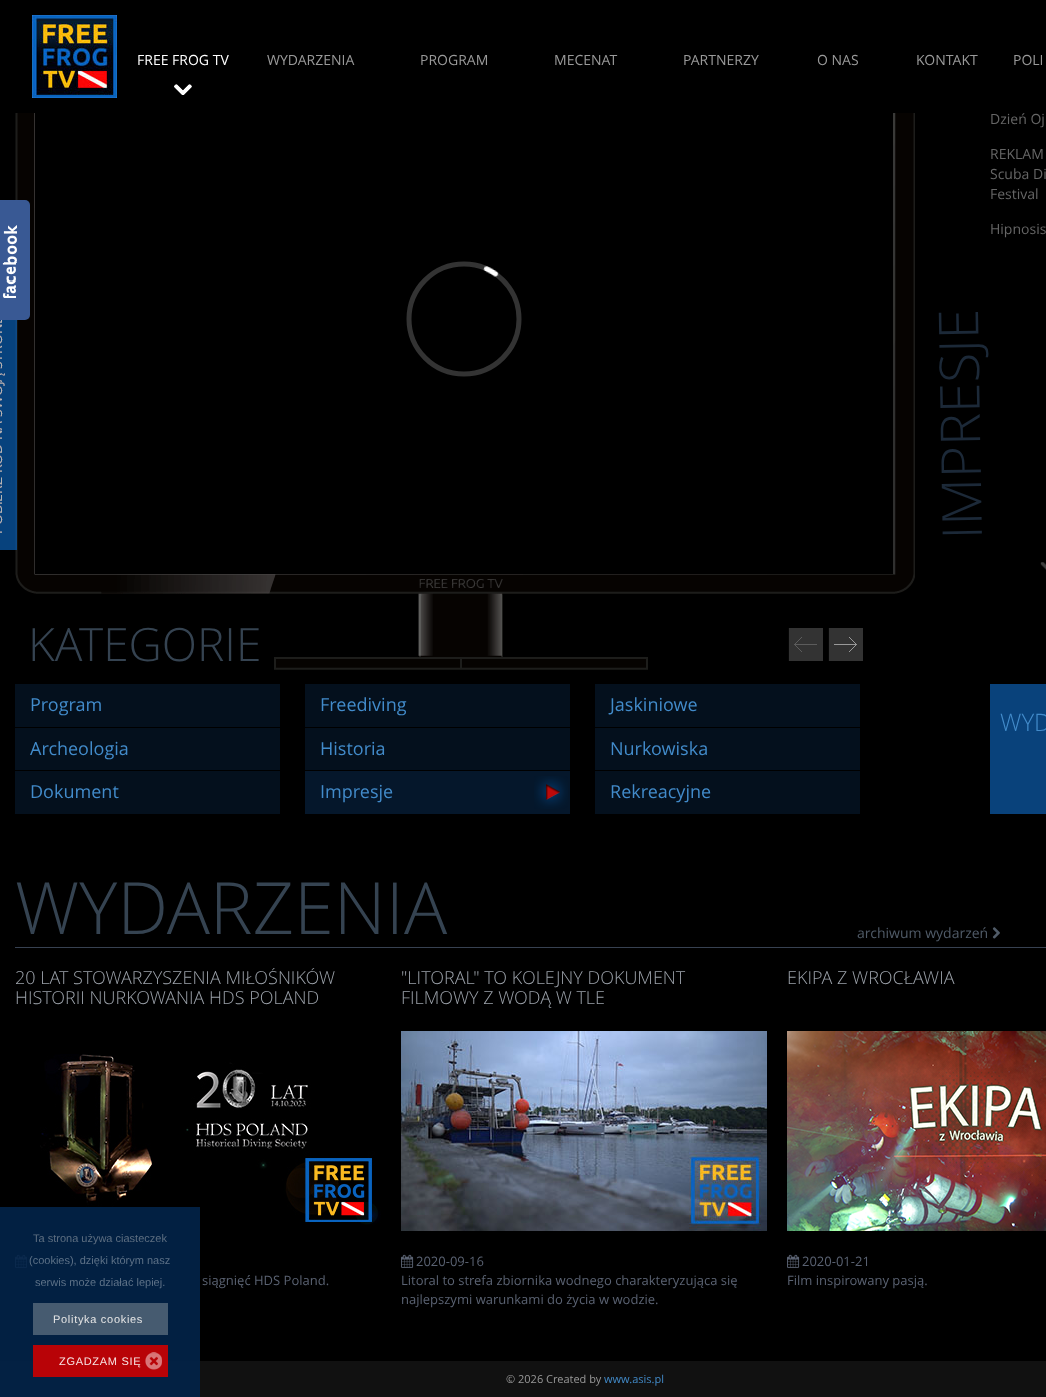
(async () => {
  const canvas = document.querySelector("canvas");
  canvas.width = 1046;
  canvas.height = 1397;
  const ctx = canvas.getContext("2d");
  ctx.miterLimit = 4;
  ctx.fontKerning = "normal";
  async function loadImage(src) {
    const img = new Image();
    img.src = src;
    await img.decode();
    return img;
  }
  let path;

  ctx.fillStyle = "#000000";
  ctx.fillRect(0, 0, 1046, 1397);
  ctx.drawImage(await loadImage("img/1.png"), 32, 15, 85, 83);
  ctx.drawImage(await loadImage("img/2.png"), 174, 84, 18, 11);
  ctx.drawImage(await loadImage("img/6.png"), 15, 113, 900, 557);
  ctx.fillStyle = "#395994";
  ctx.beginPath();
  ctx.roundRect(0, 200, 30, 120, [0, 5, 5, 0]);
  ctx.fill();
  ctx.drawImage(await loadImage("img/3.png"), 2, 225, 15, 73);
  ctx.drawImage(await loadImage("img/4.png"), 1040, 562, 6, 8);
  ctx.drawImage(await loadImage("img/5.png"), 0, 320, 17, 230);
  ctx.drawImage(await loadImage("img/7.png"), 35, 113, 858, 461);
  ctx.drawImage(await loadImage("img/8.png"), 788, 628, 35, 33);
  ctx.drawImage(await loadImage("img/9.png"), 828, 628, 35, 33);
  for (const [x, y, w, h, color] of [
    [15, 684, 265, 43, "#04101d"],
    [15, 728, 265, 42, "#04101d"],
    [15, 771, 265, 43, "#04101d"],
    [305, 684, 265, 43, "#04101d"],
    [305, 728, 265, 42, "#04101d"],
    [305, 771, 265, 43, "#05172b"],
  ]) {
    ctx.fillStyle = color;
    ctx.fillRect(x, y, w, h);
  }
  ctx.drawImage(await loadImage("img/10.png"), 534, 776, 34, 33);
  for (const [x, y, w, h, color] of [
    [595, 684, 265, 43, "#04101d"],
    [595, 728, 265, 42, "#04101d"],
    [595, 771, 265, 43, "#04101d"],
    [990, 684, 56, 130, "#09427b"],
    [15, 947, 1031, 1, "#374151"],
  ]) {
    ctx.fillStyle = color;
    ctx.fillRect(x, y, w, h);
  }
  ctx.drawImage(await loadImage("img/11.png"), 992, 927, 8, 12);
  ctx.drawImage(await loadImage("img/12.png"), 40, 1054, 341, 171);
  ctx.drawImage(await loadImage("img/13.png"), 15, 1254, 13, 14);
  ctx.drawImage(await loadImage("img/14.png"), 401, 1031, 366, 200);
  ctx.drawImage(await loadImage("img/13.png"), 401, 1254, 13, 14);
  ctx.drawImage(await loadImage("img/15.png"), 787, 1031, 259, 200);
  ctx.drawImage(await loadImage("img/13.png"), 787, 1254, 13, 14);
  for (const [x, y, w, h, color] of [
    [0, 1361, 1046, 36, "#111111"],
    [0, 1207, 200, 190, "rgba(2, 36, 73, 0.9)"],
    [33, 1303, 135, 32, "#465b70"],
    [33, 1345, 135, 32, "#b80307"],
  ]) {
    ctx.fillStyle = color;
    ctx.fillRect(x, y, w, h);
  }
  ctx.drawImage(await loadImage("img/16.png"), 145, 1352, 17, 18);
  ctx.font = "14px Open Sans";
  ctx.fillStyle = "#ffffff";
  ctx.fillText("FREE FROG TV", 137, 65);
  ctx.fillStyle = "#999999";
  for (const [text, x, y] of [
    ["WYDARZENIA", 267, 65],
    ["PROGRAM", 420, 65],
    ["MECENAT", 554, 65],
    ["PARTNERZY", 683, 65],
    ["O NAS", 817, 65],
    ["KONTAKT", 916, 65],
    ["POLI", 1013, 65],
  ]) {
    ctx.fillText(text, x, y);
  }
  ctx.fillStyle = "#666666";
  for (const [text, x, y] of [
    ["Dzień Oj", 990, 124],
    ["REKLAM", 990, 159],
    ["Scuba Di", 990, 179],
    ["Festival", 990, 199],
    ["Hipnosis", 990, 234],
  ]) {
    ctx.fillText(text, x, y);
  }
  ctx.save();
  path = new Path2D("M931.5 539.5L923 70L983.5 69L992 538.5Z");
  ctx.clip(path);
  ctx.font = "300 55px Open Sans";
  ctx.fillStyle = "#1c2938";
  ctx.save();
  ctx.translate(982, 539);
  ctx.rotate(-91 * Math.PI / 180);
  ctx.fillText("IMPRESJE", 0, 0);
  ctx.restore();
  ctx.restore();
  ctx.font = "300 46px Open Sans";
  ctx.fillStyle = "#354351";
  ctx.fillText("KATEGORIE", 28, 661);
  ctx.font = "18px Open Sans";
  ctx.fillStyle = "#428bca";
  for (const [text, x, y] of [
    ["Program", 30, 711],
    ["Archeologia", 30, 755],
    ["Dokument", 30, 798],
    ["Freediving", 320, 711],
    ["Historia", 320, 755],
    ["Impresje", 320, 798],
    ["Jaskiniowe", 610, 711],
    ["Nurkowiska", 610, 755],
    ["Rekreacyjne", 610, 798],
  ]) {
    ctx.fillText(text, x, y);
  }
  ctx.font = "300 24px Open Sans";
  ctx.fillText("WYD", 1000, 731);
  ctx.font = "300 72px Open Sans";
  ctx.fillStyle = "#354351";
  ctx.fillText("WYDARZENIA", 15, 934);
  ctx.font = "14px Open Sans";
  ctx.fillStyle = "#505b68";
  ctx.fillText("archiwum wydarzeń", 857, 938);
  ctx.save();
  ctx.beginPath();
  ctx.rect(15, 968, 366, 43);
  ctx.clip();
  ctx.font = "300 18px Open Sans";
  ctx.fillStyle = "#9ba1a9";
  ctx.fillText("20 LAT STOWARZYSZENIA MIŁOŚNIKÓW", 15, 984);
  ctx.restore();
  ctx.font = "300 18px Open Sans";
  ctx.fillStyle = "#9ba1a9";
  ctx.fillText("HISTORII NURKOWANIA HDS POLAND", 15, 1004);
  ctx.font = "13px Open Sans";
  ctx.fillStyle = "#5a6272";
  ctx.fillText("siągnięć HDS Poland.", 202, 1285);
  ctx.font = "300 18px Open Sans";
  ctx.fillStyle = "#9ba1a9";
  ctx.fillText("\"LITORAL\" TO KOLEJNY DOKUMENT", 401, 984);
  ctx.fillText("FILMOWY Z WODĄ W TLE", 401, 1004);
  ctx.font = "13px Open Sans";
  ctx.fillStyle = "#5a6272";
  for (const [text, x, y] of [
    ["2020-09-16", 416, 1266],
    ["Litoral to strefa zbiornika wodnego charakteryzująca się", 401, 1285],
    ["najlepszymi warunkami do życia w wodzie.", 401, 1304],
  ]) {
    ctx.fillText(text, x, y);
  }
  ctx.font = "300 18px Open Sans";
  ctx.fillStyle = "#9ba1a9";
  ctx.fillText("EKIPA Z WROCŁAWIA", 787, 984);
  ctx.font = "13px Open Sans";
  ctx.fillStyle = "#5a6272";
  ctx.fillText("2020-01-21", 802, 1266);
  ctx.fillText("Film inspirowany pasją.", 787, 1285);
  ctx.font = "11px Liberation Sans";
  ctx.fillStyle = "#5d6e81";
  ctx.fillText("Ta strona używa ciasteczek", 33, 1242);
  ctx.fillStyle = "#5d7187";
  ctx.fillText("(cookies), dzięki którym nasz", 29, 1264);
  ctx.fillText("serwis może działać lepiej.", 35, 1286);
  ctx.letterSpacing = "0.7px";
  ctx.fillStyle = "#e6e6e6";
  ctx.fillText("Polityka cookies", 53, 1323);
  ctx.fillStyle = "#f8e6e6";
  ctx.fillText("ZGADZAM SIĘ", 59, 1365);
  ctx.letterSpacing = "0px";
  ctx.font = "11px Open Sans";
  ctx.fillStyle = "#999999";
  ctx.fillText("© 2026 Created by", 506, 1383);
  ctx.fillStyle = "#428bca";
  ctx.fillText("www.asis.pl", 604, 1383);
})();
